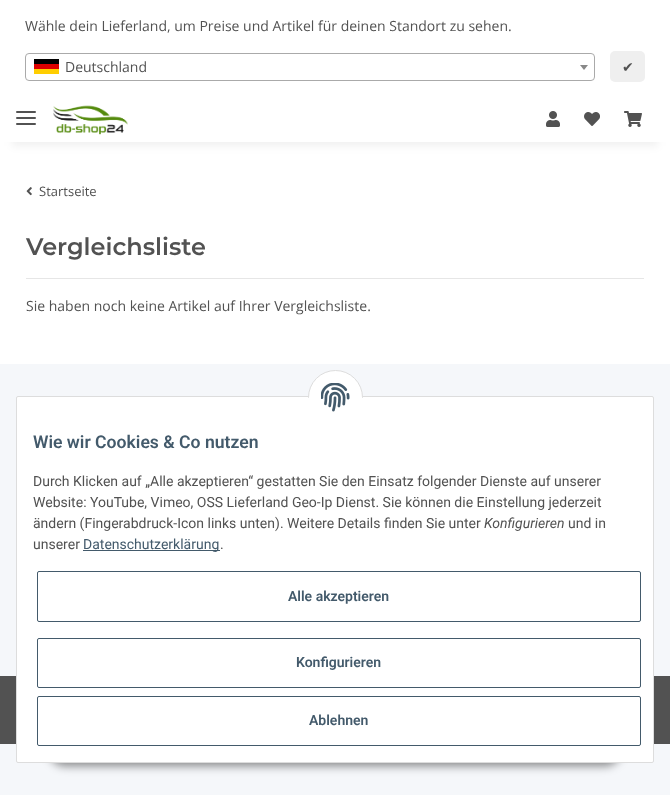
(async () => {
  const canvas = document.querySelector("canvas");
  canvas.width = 670;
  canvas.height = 795;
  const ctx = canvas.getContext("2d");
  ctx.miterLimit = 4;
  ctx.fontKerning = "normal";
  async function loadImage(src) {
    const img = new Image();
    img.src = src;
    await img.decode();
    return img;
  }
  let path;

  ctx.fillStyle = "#f5f7fa";
  ctx.fillRect(0, 0, 670, 795);
  ctx.fillStyle = "#ffffff";
  ctx.fillRect(0, 142, 670, 222);
  ctx.fillStyle = "rgba(0, 0, 0, 0.06)";
  ctx.filter = "blur(4.5px)";
  ctx.beginPath();
  ctx.rect(12, 28, 646, 118);
  ctx.fill();
  ctx.filter = "none";
  ctx.fillStyle = "#ffffff";
  ctx.fillRect(0, 0, 670, 142);
  ctx.beginPath();
  ctx.roundRect(25.5, 53.5, 569, 27, 3.5);
  ctx.strokeStyle = "#aaaaaa";
  ctx.stroke();
  for (const [x, y, w, h, color] of [
    [34, 59, 25, 5, "#000000"],
    [34, 64, 25, 5, "#dd0000"],
    [34, 69, 25, 5, "#ffce00"],
  ]) {
    ctx.fillStyle = color;
    ctx.fillRect(x, y, w, h);
  }
  ctx.fillStyle = "#888888";
  path = new Path2D("M580 65H588L584 70Z");
  ctx.fill(path);
  ctx.fillStyle = "#efefef";
  ctx.beginPath();
  ctx.roundRect(610, 51, 35, 31, 5);
  ctx.fill();
  ctx.fillStyle = "#525252";
  ctx.beginPath();
  ctx.roundRect(16, 117, 20, 2, 1);
  ctx.fill();
  ctx.beginPath();
  ctx.roundRect(16, 111, 20, 2, 1);
  ctx.fill();
  ctx.beginPath();
  ctx.roundRect(16, 123, 20, 2, 1);
  ctx.fill();
  ctx.drawImage(await loadImage("img/1.png"), 53, 105, 75, 30);
  ctx.drawImage(await loadImage("img/2.png"), 546, 111, 14, 16);
  ctx.drawImage(await loadImage("img/3.png"), 584, 112, 16, 14);
  ctx.drawImage(await loadImage("img/4.png"), 624, 111, 18, 16);
  ctx.drawImage(await loadImage("img/5.png"), 26, 187, 6, 9);
  ctx.fillStyle = "#e6e6e6";
  ctx.fillRect(26, 278, 618, 1);
  ctx.fillStyle = "#525252";
  ctx.fillRect(0, 676, 670, 68);
  ctx.fillStyle = "rgba(0, 0, 0, 0.45)";
  ctx.filter = "blur(5px)";
  ctx.beginPath();
  ctx.roundRect(49, 734, 572, 32, 16);
  ctx.fill();
  ctx.filter = "none";
  ctx.fillStyle = "#ffffff";
  ctx.beginPath();
  ctx.roundRect(16.5, 396.5, 637, 366, 1.5);
  ctx.fill();
  ctx.strokeStyle = "#dddddd";
  ctx.stroke();
  ctx.beginPath();
  ctx.arc(335.5, 397.5, 27, 0, Math.PI * 2);
  ctx.fill();
  ctx.stroke();
  ctx.fillRect(308, 398, 55, 27);
  ctx.drawImage(await loadImage("img/6.png"), 321, 383, 29, 29);
  ctx.fillStyle = "#435a6b";
  ctx.fillRect(83, 550, 137, 1);
  ctx.beginPath();
  ctx.roundRect(37.5, 571.5, 603, 50, 1.5);
  ctx.strokeStyle = "#435a6b";
  ctx.stroke();
  ctx.beginPath();
  ctx.roundRect(37.5, 638.5, 603, 49, 1.5);
  ctx.stroke();
  ctx.beginPath();
  ctx.roundRect(37.5, 696.5, 603, 49, 1.5);
  ctx.stroke();
  ctx.font = "14px Open Sans";
  ctx.fillStyle = "#525252";
  ctx.fillText("Wähle dein Lieferland, um Preise und Artikel für deinen Standort zu sehen.", 25, 31);
  ctx.fillText("Deutschland", 65, 72);
  ctx.font = "14px DejaVu Sans";
  ctx.fillText("✔", 622, 72);
  ctx.font = "13px Open Sans";
  ctx.fillText("Startseite", 39, 196);
  ctx.font = "600 24px Montserrat";
  ctx.fillText("Vergleichsliste", 26, 255);
  ctx.font = "14px Open Sans";
  ctx.fillText("Sie haben noch keine Artikel auf Ihrer Vergleichsliste.", 26, 311);
  ctx.font = "600 17.6px Roboto";
  ctx.fillStyle = "#435a6b";
  ctx.fillText("Wie wir Cookies & Co nutzen", 33, 448);
  ctx.font = "14px Roboto";
  ctx.fillStyle = "#525252";
  for (const [text, x, y] of [
    ["Durch Klicken auf „Alle akzeptieren“ gestatten Sie den Einsatz folgender Dienste auf unserer", 33, 486],
    ["Website: YouTube, Vimeo, OSS Lieferland Geo-Ip Dienst. Sie können die Einstellung jederzeit", 33, 507],
    ["ändern (Fingerabdruck-Icon links unten). Weitere Details finden Sie unter", 33, 528],
  ]) {
    ctx.fillText(text, x, y);
  }
  ctx.font = "italic 14px Roboto";
  ctx.fillText("Konfigurieren", 484, 528);
  ctx.font = "14px Roboto";
  ctx.fillText("und in", 568, 528);
  ctx.fillText("unserer", 33, 549);
  ctx.fillStyle = "#435a6b";
  ctx.fillText("Datenschutzerklärung", 83, 549);
  ctx.fillStyle = "#525252";
  ctx.fillText(".", 220, 549);
  ctx.font = "600 14px Roboto";
  ctx.fillStyle = "#435a6b";
  for (const [text, x, y] of [
    ["Alle akzeptieren", 288, 601],
    ["Konfigurieren", 296, 667],
    ["Ablehnen", 309, 725],
  ]) {
    ctx.fillText(text, x, y);
  }
})();
